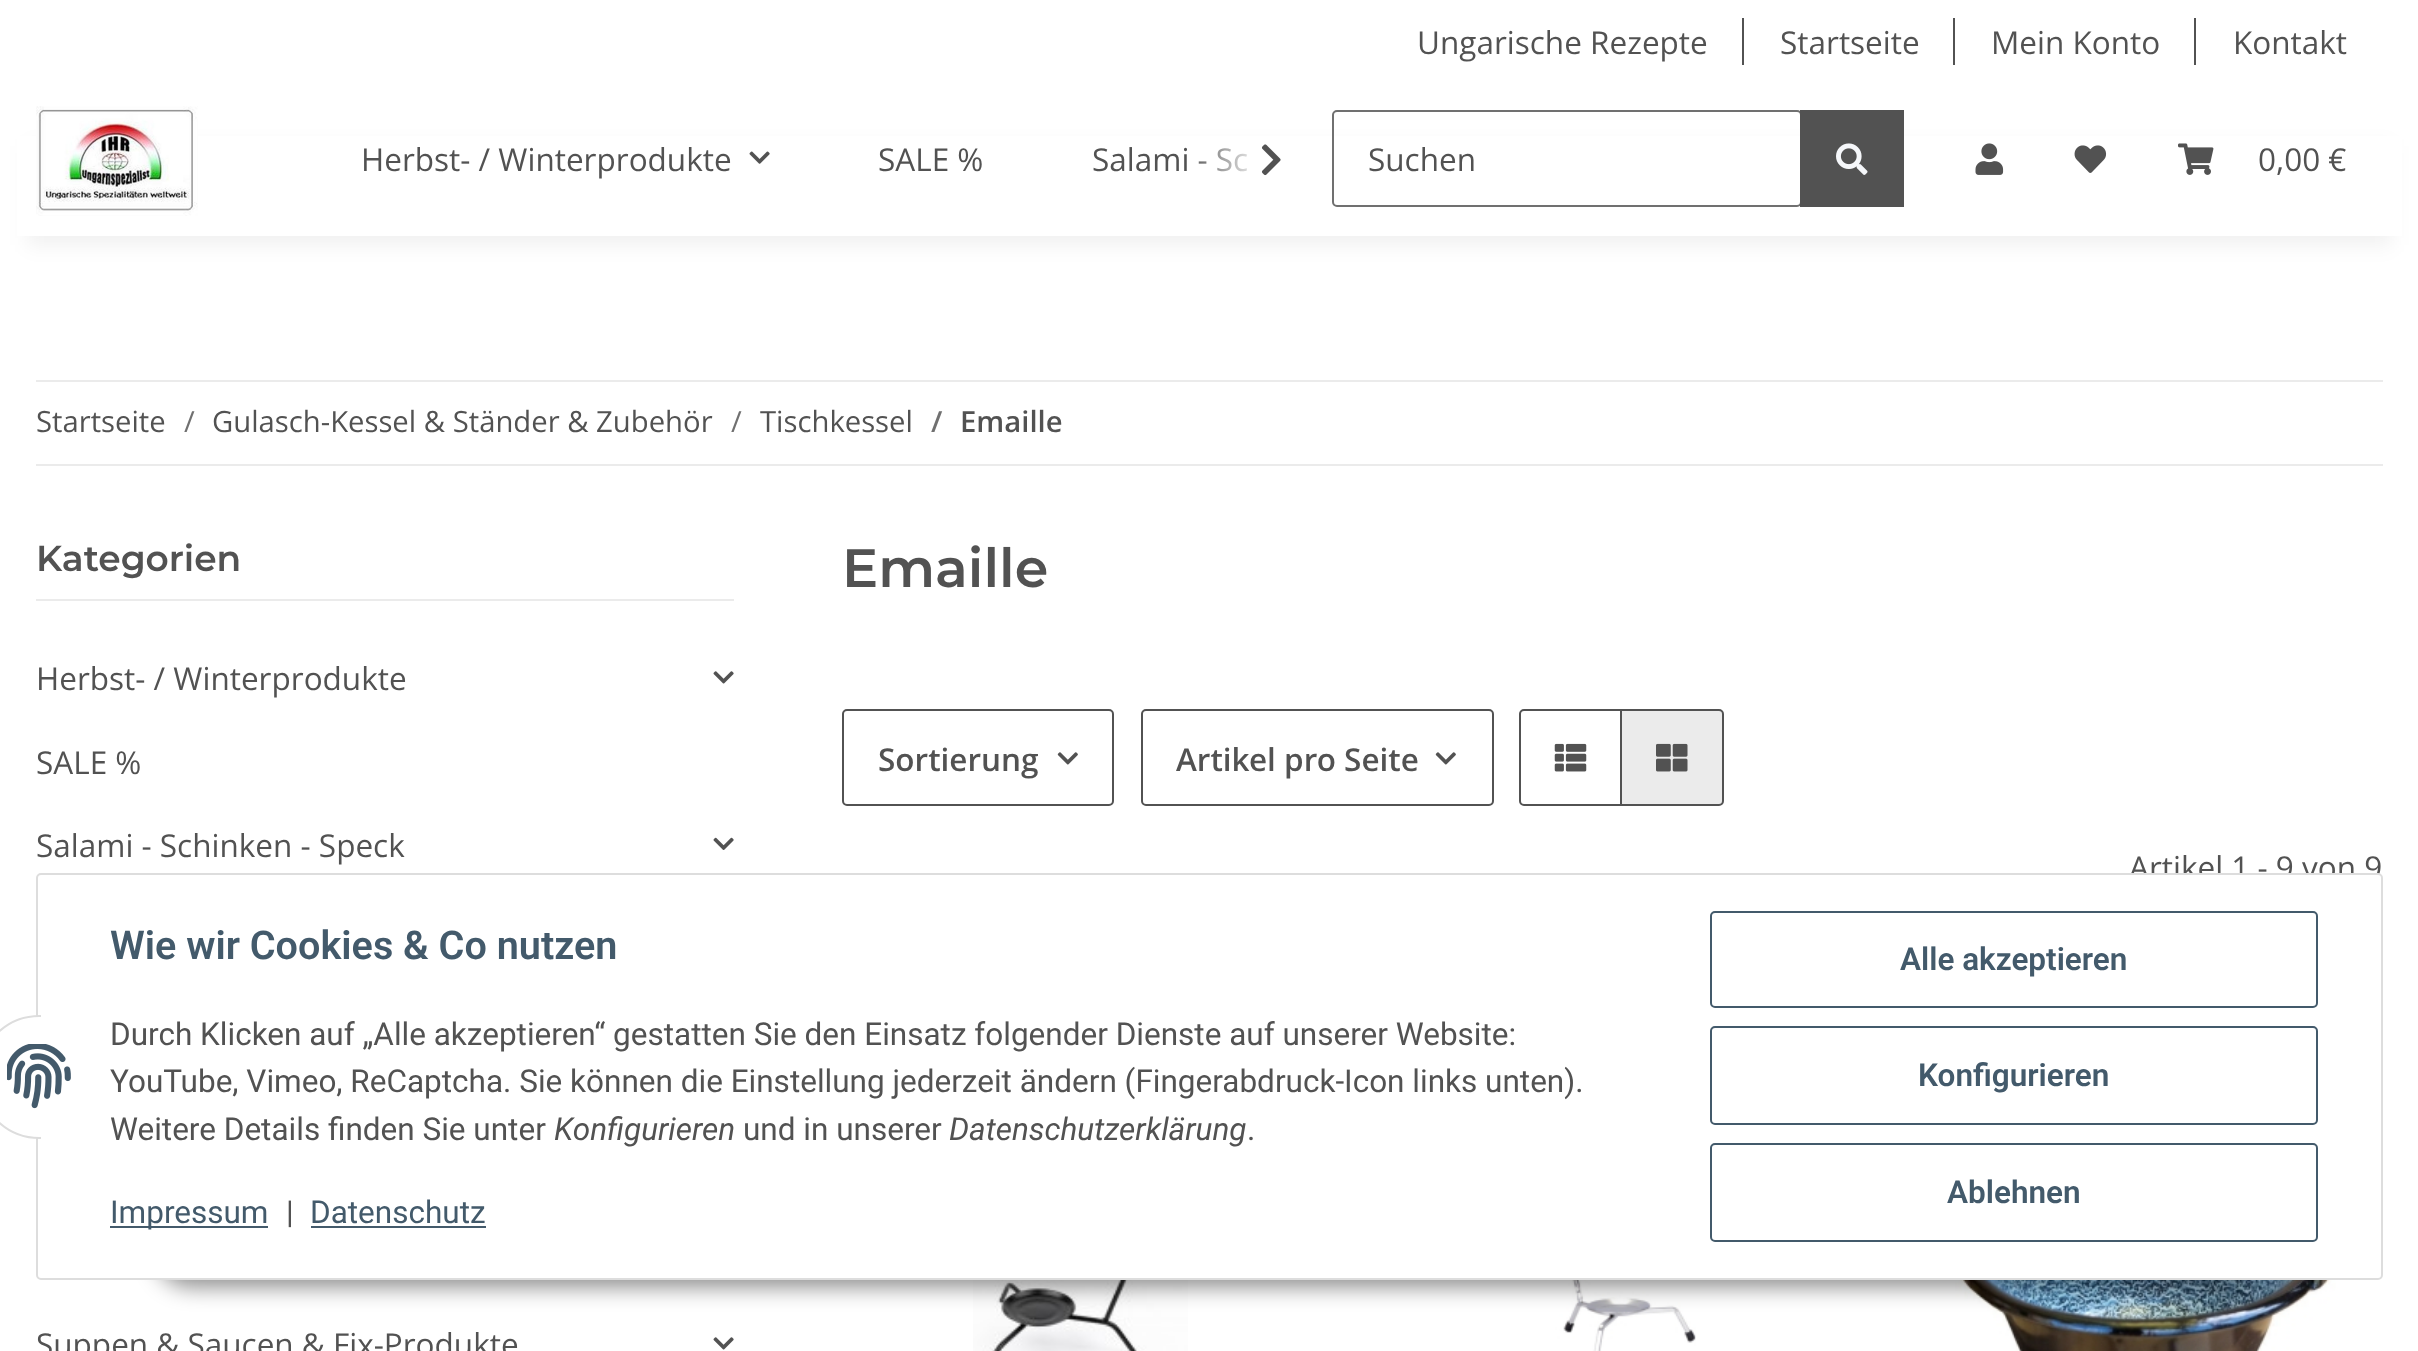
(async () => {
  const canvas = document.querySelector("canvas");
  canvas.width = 2418;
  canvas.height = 1351;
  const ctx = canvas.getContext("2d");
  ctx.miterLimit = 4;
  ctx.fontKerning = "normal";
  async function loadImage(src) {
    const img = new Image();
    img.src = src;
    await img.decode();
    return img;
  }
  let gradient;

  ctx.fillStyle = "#ffffff";
  ctx.fillRect(0, 0, 2418, 1351);
  for (const [x, y, w, h, color] of [
    [1742, 18, 2, 47, "#525252"],
    [1953, 18, 2, 47, "#525252"],
    [2194, 18, 2, 47, "#525252"],
  ]) {
    ctx.fillStyle = color;
    ctx.fillRect(x, y, w, h);
  }
  ctx.fillStyle = "rgba(0, 0, 0, 0.06)";
  ctx.filter = "blur(10px)";
  ctx.beginPath();
  ctx.rect(27, 146, 2365, 99);
  ctx.fill();
  ctx.filter = "none";
  ctx.fillStyle = "#ffffff";
  ctx.fillRect(17, 136, 2385, 100);
  ctx.drawImage(await loadImage("img/1.png"), 36, 106, 162, 110);
  ctx.drawImage(await loadImage("img/2.png"), 1261, 144, 20, 32);
  ctx.drawImage(await loadImage("img/3.png"), 749, 151, 21, 13);
  ctx.beginPath();
  ctx.roundRect(1333, 111, 468, 95, 4);
  ctx.strokeStyle = "#707070";
  ctx.lineWidth = 2;
  ctx.stroke();
  ctx.fillStyle = "#525252";
  ctx.fillRect(1800, 110, 104, 97);
  ctx.drawImage(await loadImage("img/4.png"), 1836, 143, 32, 32);
  ctx.drawImage(await loadImage("img/5.png"), 1975, 143, 29, 32);
  ctx.drawImage(await loadImage("img/6.png"), 2074, 145, 33, 28);
  ctx.drawImage(await loadImage("img/7.png"), 2178, 143, 36, 32);
  for (const [x, y, w, h, color] of [
    [36, 380, 2347, 2, "#ebebeb"],
    [36, 464, 2347, 2, "#ebebeb"],
    [36, 599, 698, 2, "#ebebeb"],
  ]) {
    ctx.fillStyle = color;
    ctx.fillRect(x, y, w, h);
  }
  ctx.drawImage(await loadImage("img/8.png"), 713, 671, 21, 13);
  ctx.drawImage(await loadImage("img/9.png"), 713, 837, 21, 13);
  ctx.drawImage(await loadImage("img/8.png"), 713, 1337, 21, 13);
  ctx.beginPath();
  ctx.roundRect(843, 710, 270, 95, 4);
  ctx.strokeStyle = "#525252";
  ctx.stroke();
  ctx.drawImage(await loadImage("img/10.png"), 1057, 752, 21, 13);
  ctx.beginPath();
  ctx.roundRect(1142, 710, 351, 95, 4);
  ctx.stroke();
  ctx.drawImage(await loadImage("img/10.png"), 1435, 752, 21, 13);
  ctx.beginPath();
  ctx.roundRect(1520, 710, 101, 95, [4, 0, 0, 4]);
  ctx.stroke();
  ctx.drawImage(await loadImage("img/11.png"), 1554, 743, 33, 29);
  ctx.beginPath();
  ctx.roundRect(1621, 710, 102, 95, [0, 4, 4, 0]);
  ctx.fill();
  ctx.stroke();
  ctx.drawImage(await loadImage("img/12.png"), 1656, 743, 32, 29);
  ctx.drawImage(await loadImage("img/13.png"), 973, 1280, 215, 71);
  ctx.drawImage(await loadImage("img/14.png"), 1547, 1280, 149, 71);
  ctx.drawImage(await loadImage("img/15.png"), 1955, 1280, 395, 71);
  ctx.fillStyle = "rgba(0, 0, 0, 0.45)";
  ctx.filter = "blur(11px)";
  ctx.beginPath();
  ctx.roundRect(155, 1215, 2109, 72, 36);
  ctx.fill();
  ctx.filter = "none";
  ctx.font = "31.5px Open Sans";
  ctx.fillStyle = "#525252";
  for (const [text, x, y] of [
    ["Ungarische Rezepte", 1417, 54],
    ["Startseite", 1780, 54],
    ["Mein Konto", 1991, 54],
    ["Kontakt", 2233, 54],
    ["Herbst- / Winterprodukte", 361, 171],
    ["SALE %", 878, 171],
    ["Salami - Sc", 1092, 171],
  ]) {
    ctx.fillText(text, x, y);
  }
  gradient = ctx.createLinearGradient(1188, 160, 1296, 160);
  gradient.addColorStop(0, "rgba(255, 255, 255, 0.01)");
  gradient.addColorStop(0.7, "#ffffff");
  ctx.fillStyle = gradient;
  ctx.fillRect(1198, 148, 49, 24);
  ctx.fillStyle = "#525252";
  ctx.fillText("Suchen", 1368, 171);
  ctx.fillText("0,00 €", 2258, 171);
  ctx.font = "29.25px Open Sans";
  ctx.fillText("Startseite", 36, 432);
  ctx.fillStyle = "#707070";
  ctx.fillText("/", 184, 432);
  ctx.fillStyle = "#525252";
  ctx.fillText("Gulasch-Kessel & Ständer & Zubehör", 212, 432);
  ctx.fillStyle = "#707070";
  ctx.fillText("/", 731, 432);
  ctx.fillStyle = "#525252";
  ctx.fillText("Tischkessel", 760, 432);
  ctx.font = "600 29.25px Open Sans";
  ctx.fillStyle = "#707070";
  ctx.fillText("/", 931, 432);
  ctx.fillStyle = "#525252";
  ctx.fillText("Emaille", 960, 432);
  ctx.font = "600 36px Montserrat";
  ctx.fillText("Kategorien", 36, 571);
  ctx.font = "31.5px Open Sans";
  for (const [text, x, y] of [
    ["Herbst- / Winterprodukte", 36, 690],
    ["SALE %", 36, 774],
    ["Salami - Schinken - Speck", 36, 857],
    ["Suppen & Saucen & Fix-Produkte", 36, 1356],
  ]) {
    ctx.fillText(text, x, y);
  }
  ctx.font = "600 54px Montserrat";
  ctx.fillText("Emaille", 842, 587);
  ctx.font = "600 31.5px Open Sans";
  ctx.fillText("Sortierung", 878, 771);
  ctx.fillText("Artikel pro Seite", 1176, 771);
  ctx.font = "31.5px Open Sans";
  ctx.fillText("Artikel 1 - 9 von 9", 2129, 879);
  ctx.fillStyle = "#ffffff";
  ctx.beginPath();
  ctx.roundRect(37, 874, 2345, 405, 4);
  ctx.fill();
  ctx.strokeStyle = "#dddddd";
  ctx.stroke();
  ctx.beginPath();
  ctx.roundRect(-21, 1016, 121, 122, 60.5);
  ctx.fill();
  ctx.stroke();
  ctx.fillRect(41, 1015, 60, 124);
  ctx.drawImage(await loadImage("img/16.png"), 7, 1044, 64, 65);
  ctx.font = "600 39.6px Roboto";
  ctx.fillStyle = "#435a6b";
  ctx.fillText("Wie wir Cookies & Co nutzen", 110, 959);
  ctx.font = "31.5px Roboto";
  ctx.fillStyle = "#525252";
  for (const [text, x, y] of [
    ["Durch Klicken auf „Alle akzeptieren“ gestatten Sie den Einsatz folgender Dienste auf unserer Website:", 110, 1045],
    ["YouTube, Vimeo, ReCaptcha. Sie können die Einstellung jederzeit ändern (Fingerabdruck-Icon links unten).", 110, 1092],
    ["Weitere Details finden Sie unter", 110, 1140],
  ]) {
    ctx.fillText(text, x, y);
  }
  ctx.font = "italic 31.5px Roboto";
  ctx.fillText("Konfigurieren", 554, 1140);
  ctx.font = "31.5px Roboto";
  ctx.fillText("und in unserer", 743, 1140);
  ctx.font = "italic 31.5px Roboto";
  ctx.fillText("Datenschutzerklärung", 949, 1140);
  ctx.font = "31.5px Roboto";
  ctx.fillText(".", 1247, 1140);
  ctx.fillStyle = "#435a6b";
  ctx.fillRect(110, 1226, 158, 2);
  ctx.fillText("Impressum", 110, 1223);
  ctx.fillStyle = "#525252";
  ctx.fillText("|", 286, 1223);
  ctx.fillStyle = "#435a6b";
  ctx.fillText("Datenschutz", 310, 1223);
  ctx.fillRect(311, 1226, 175, 2);
  ctx.beginPath();
  ctx.roundRect(1711, 912, 606, 95, 4);
  ctx.strokeStyle = "#435a6b";
  ctx.stroke();
  ctx.font = "600 31.5px Roboto";
  ctx.fillText("Alle akzeptieren", 1900, 970);
  ctx.beginPath();
  ctx.roundRect(1711, 1027, 606, 97, 4);
  ctx.stroke();
  ctx.fillText("Konfigurieren", 1918, 1086);
  ctx.beginPath();
  ctx.roundRect(1711, 1144, 606, 97, 4);
  ctx.stroke();
  ctx.fillText("Ablehnen", 1947, 1203);
})();
